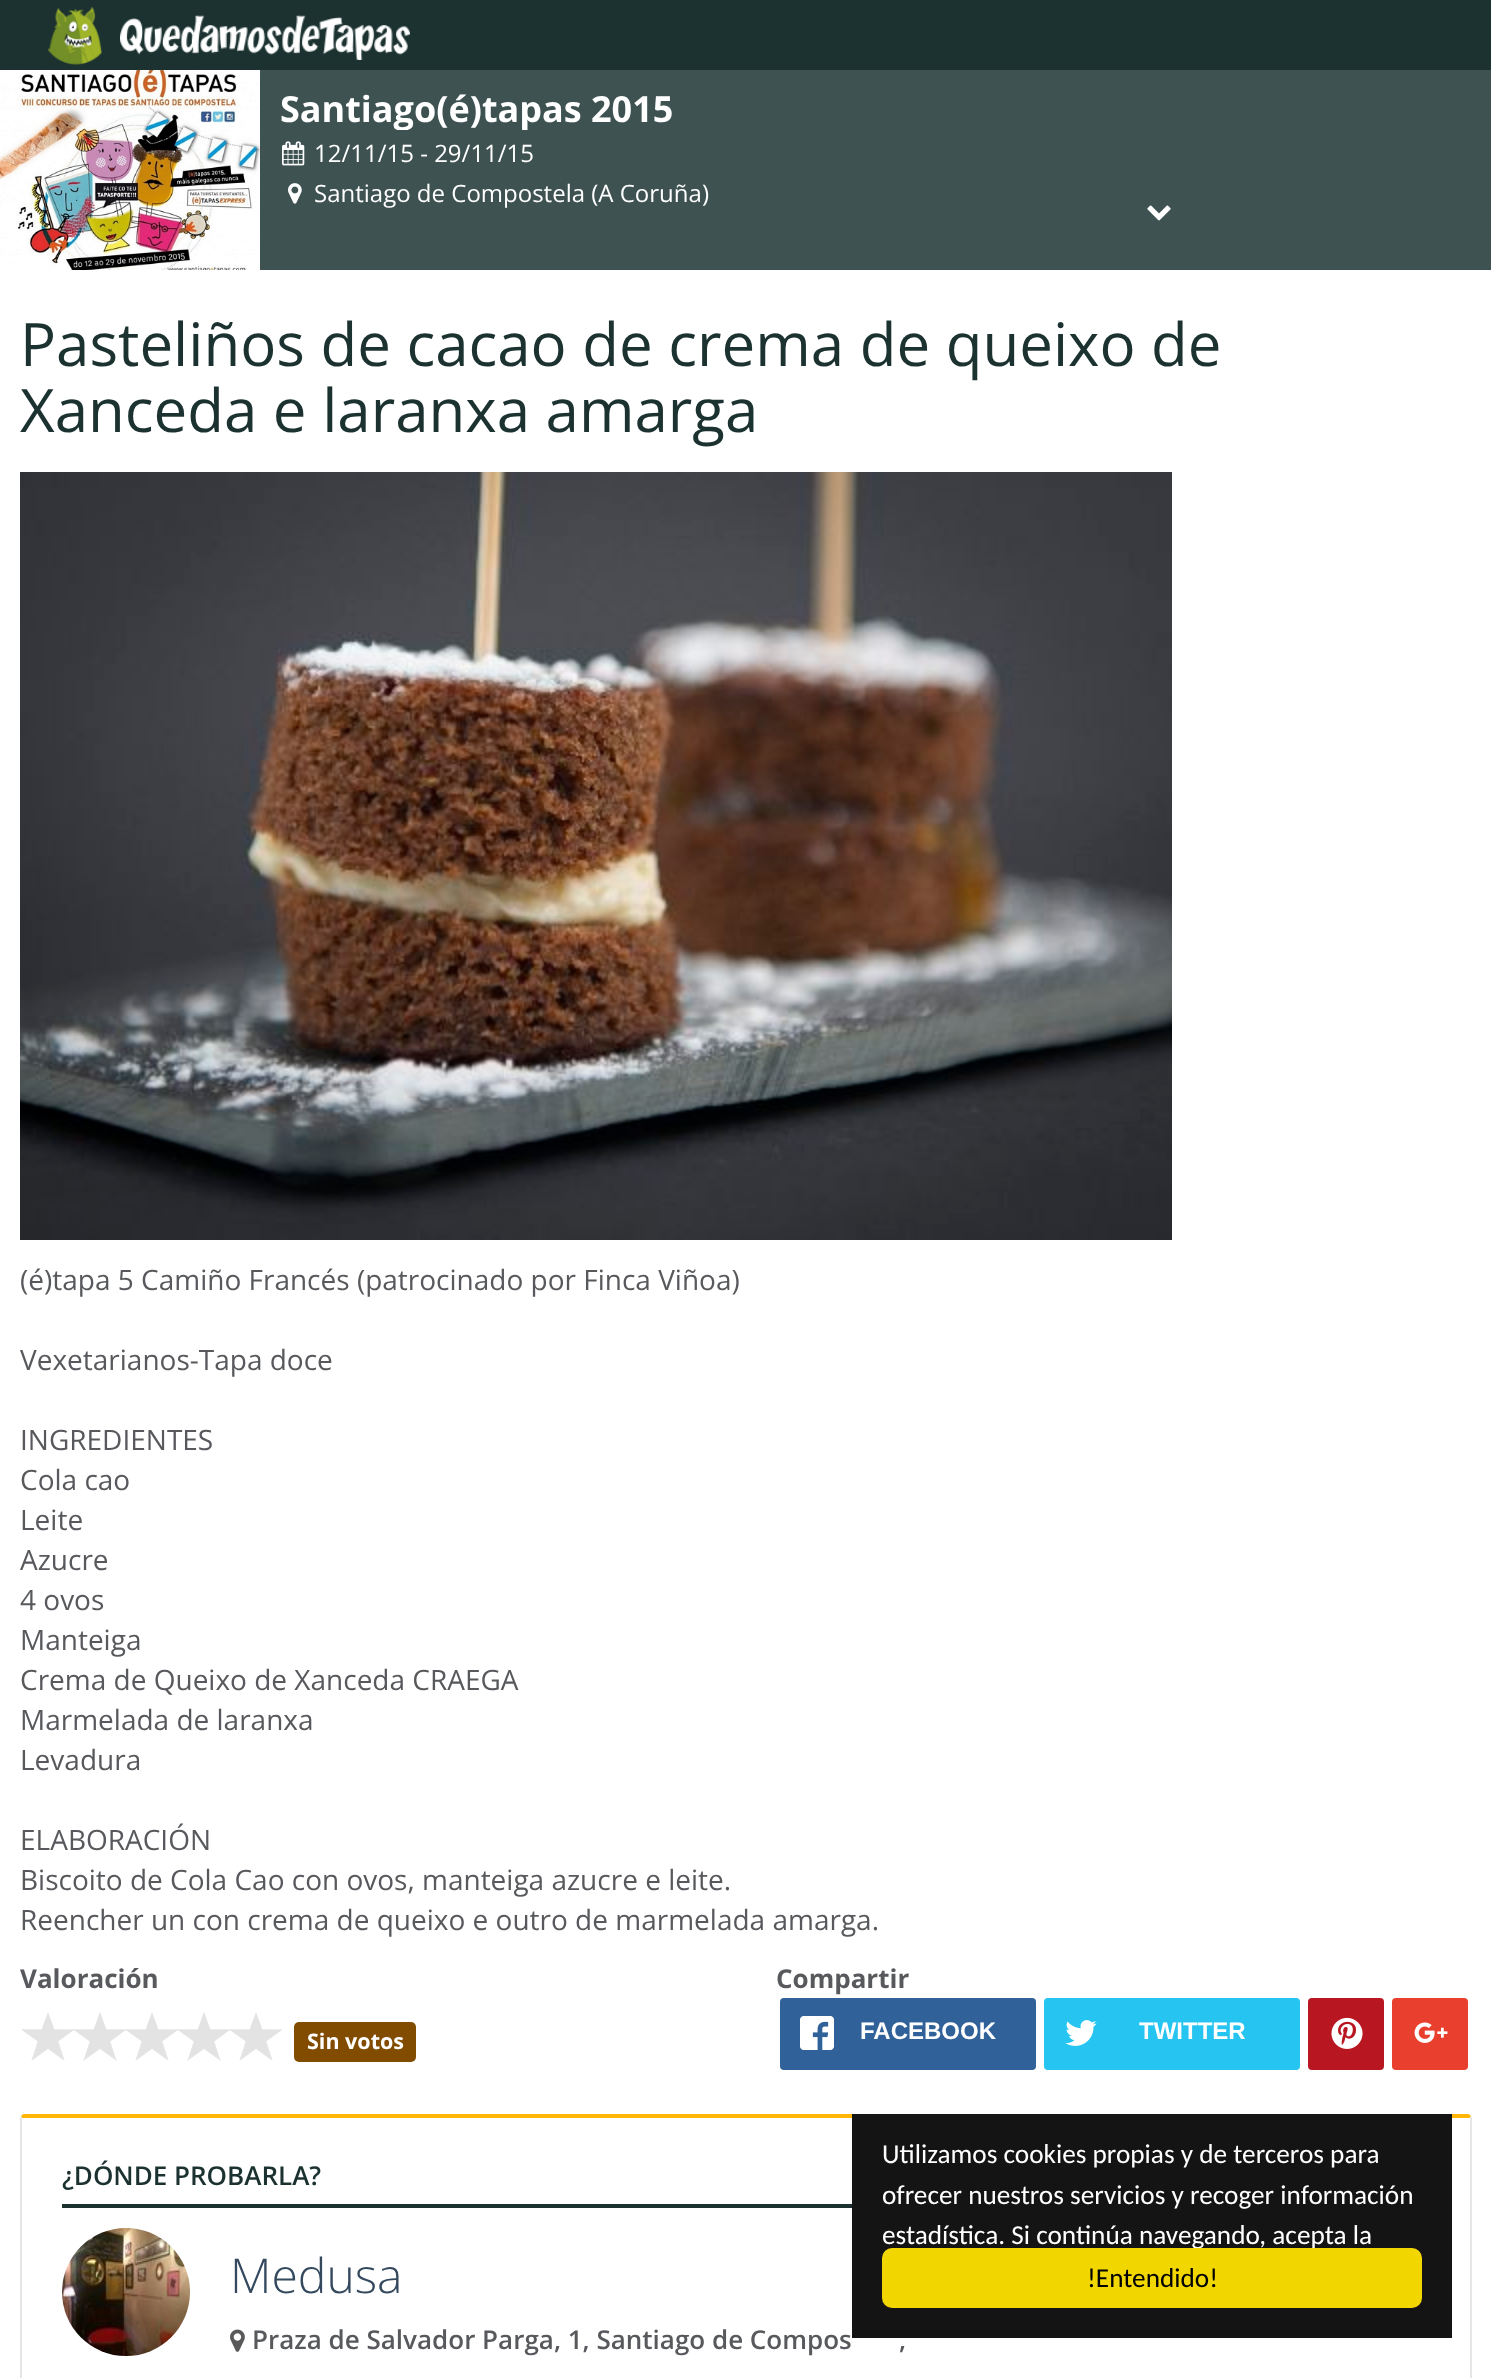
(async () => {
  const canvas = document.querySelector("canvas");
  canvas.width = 1491;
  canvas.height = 2378;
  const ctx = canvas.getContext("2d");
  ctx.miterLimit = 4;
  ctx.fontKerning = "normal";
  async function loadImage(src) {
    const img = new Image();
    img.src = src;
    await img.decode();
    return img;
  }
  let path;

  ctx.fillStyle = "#1b3230";
  ctx.fillRect(0, 0, 1491, 2378);
  ctx.drawImage(await loadImage("img/1.png"), 48, 6, 54, 59);
  ctx.drawImage(await loadImage("img/2.png"), 120, 15, 290, 45);
  ctx.fillStyle = "#3d5251";
  ctx.fillRect(260, 70, 1231, 200);
  ctx.drawImage(await loadImage("img/3.png"), 0, 70, 260, 200);
  ctx.drawImage(await loadImage("img/4.png"), 282, 141, 23, 25);
  ctx.drawImage(await loadImage("img/5.png"), 288, 183, 14, 21);
  ctx.drawImage(await loadImage("img/6.png"), 1147, 205, 24, 16);
  ctx.fillStyle = "#ffffff";
  ctx.fillRect(0, 270, 1491, 2108);
  ctx.drawImage(await loadImage("img/7.png"), 20, 472, 1152, 768);
  ctx.drawImage(await loadImage("img/8.png"), 21, 2012, 262, 49);
  ctx.fillStyle = "#824c00";
  ctx.beginPath();
  ctx.roundRect(294, 2022, 122, 40, 5);
  ctx.fill();
  ctx.fillStyle = "#306199";
  ctx.beginPath();
  ctx.roundRect(780, 1998, 256, 72, 4);
  ctx.fill();
  ctx.drawImage(await loadImage("img/9.png"), 800, 2016, 34, 34);
  ctx.fillStyle = "#26c4f1";
  ctx.beginPath();
  ctx.roundRect(1044, 1998, 256, 72, 4);
  ctx.fill();
  ctx.drawImage(await loadImage("img/10.png"), 1065, 2020, 32, 26);
  ctx.fillStyle = "#b81621";
  ctx.beginPath();
  ctx.roundRect(1308, 1998, 76, 72, 4);
  ctx.fill();
  ctx.drawImage(await loadImage("img/11.png"), 1331, 2017, 32, 32);
  ctx.fillStyle = "#e93f2e";
  ctx.beginPath();
  ctx.roundRect(1392, 1998, 76, 72, 4);
  ctx.fill();
  ctx.drawImage(await loadImage("img/12.png"), 1414, 2022, 34, 21);
  ctx.fillStyle = "#ffb606";
  path = new Path2D("M24 2114C23 2114 22 2115 21 2116L22 2118H1470L1471 2116C1470 2115 1469 2114 1468 2114Z");
  ctx.fill(path);
  ctx.fillStyle = "#e4e5e7";
  path = new Path2D("M1472 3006V2118L1471 2116L1470 2118V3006L1469 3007L1471 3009Z");
  ctx.fill(path);
  path = new Path2D("M20 2118V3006L21 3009L23 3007L22 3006V2118L21 2116Z");
  ctx.fill(path);
  ctx.fillStyle = "#1b3230";
  ctx.fillRect(62, 2204, 790, 4);
  ctx.drawImage(await loadImage("img/13.png"), 62, 2228, 128, 128);
  ctx.drawImage(await loadImage("img/14.png"), 230, 2329, 15, 23);
  ctx.fillStyle = "#141414";
  ctx.fillRect(852, 2114, 600, 224);
  ctx.save();
  ctx.beginPath();
  ctx.rect(280, 90, 844, 40);
  ctx.clip();
  ctx.font = "bold 36px Open Sans";
  ctx.fillStyle = "#ffffff";
  ctx.fillText("Santiago(é)tapas 2015", 280, 122);
  ctx.restore();
  ctx.font = "24px Open Sans";
  ctx.fillStyle = "#ffffff";
  ctx.fillText("12/11/15 - 29/11/15", 314, 162);
  ctx.fillText("Santiago de Compostela (A Coruña)", 314, 202);
  ctx.font = "60px Open Sans";
  ctx.fillStyle = "#1b3230";
  ctx.fillText("Pasteliños de cacao de crema de queixo de", 20, 366);
  ctx.fillText("Xanceda e laranxa amarga", 20, 432);
  ctx.font = "28px Open Sans";
  ctx.fillStyle = "#57595c";
  for (const [text, x, y] of [
    ["(é)tapa 5 Camiño Francés (patrocinado por Finca Viñoa)", 20, 1290],
    ["Vexetarianos-Tapa doce", 20, 1370],
    ["INGREDIENTES", 20, 1450],
    ["Cola cao", 20, 1490],
    ["Leite", 20, 1530],
    ["Azucre", 20, 1570],
    ["4 ovos", 20, 1610],
    ["Manteiga", 20, 1650],
    ["Crema de Queixo de Xanceda CRAEGA", 20, 1690],
    ["Marmelada de laranxa", 20, 1730],
    ["Levadura", 20, 1770],
    ["ELABORACIÓN", 20, 1850],
    ["Biscoito de Cola Cao con ovos, manteiga azucre e leite.", 20, 1890],
    ["Reencher un con crema de queixo e outro de marmelada amarga.", 20, 1930],
  ]) {
    ctx.fillText(text, x, y);
  }
  ctx.font = "bold 26px Open Sans";
  ctx.fillText("Valoración", 20, 1988);
  ctx.font = "bold 21.5px Open Sans";
  ctx.fillStyle = "#ffffff";
  ctx.fillText("Sin votos", 307, 2049);
  ctx.font = "bold 26px Open Sans";
  ctx.fillStyle = "#57595c";
  ctx.fillText("Compartir", 776, 1988);
  ctx.font = "bold 24px Liberation Sans";
  ctx.fillStyle = "#ffffff";
  ctx.fillText("FACEBOOK", 860, 2039);
  ctx.fillText("TWITTER", 1139, 2039);
  ctx.font = "600 26px Open Sans";
  ctx.fillStyle = "#1b3230";
  ctx.fillText("¿DÓNDE PROBARLA?", 62, 2185);
  ctx.font = "300 48px Open Sans";
  ctx.fillStyle = "#34495e";
  ctx.fillText("Medusa", 230, 2293);
  ctx.font = "600 26px Open Sans";
  ctx.fillStyle = "#57595c";
  ctx.fillText("Praza de Salvador Parga, 1, Santiago de Compos", 252, 2349);
  ctx.fillText(",", 899, 2349);
  ctx.font = "27.25px Carlito";
  ctx.fillStyle = "#ffffff";
  for (const [text, x, y] of [
    ["Utilizamos cookies propias y de terceros para", 882, 2163],
    ["ofrecer nuestros servicios y recoger información", 882, 2204],
    ["estadística. Si continúa navegando, acepta la", 882, 2244],
  ]) {
    ctx.fillText(text, x, y);
  }
  ctx.fillStyle = "#f1d600";
  ctx.beginPath();
  ctx.roundRect(882, 2248, 540, 60, 10);
  ctx.fill();
  ctx.fillStyle = "#000000";
  ctx.fillText("!Entendido!", 1087, 2287);
})();
